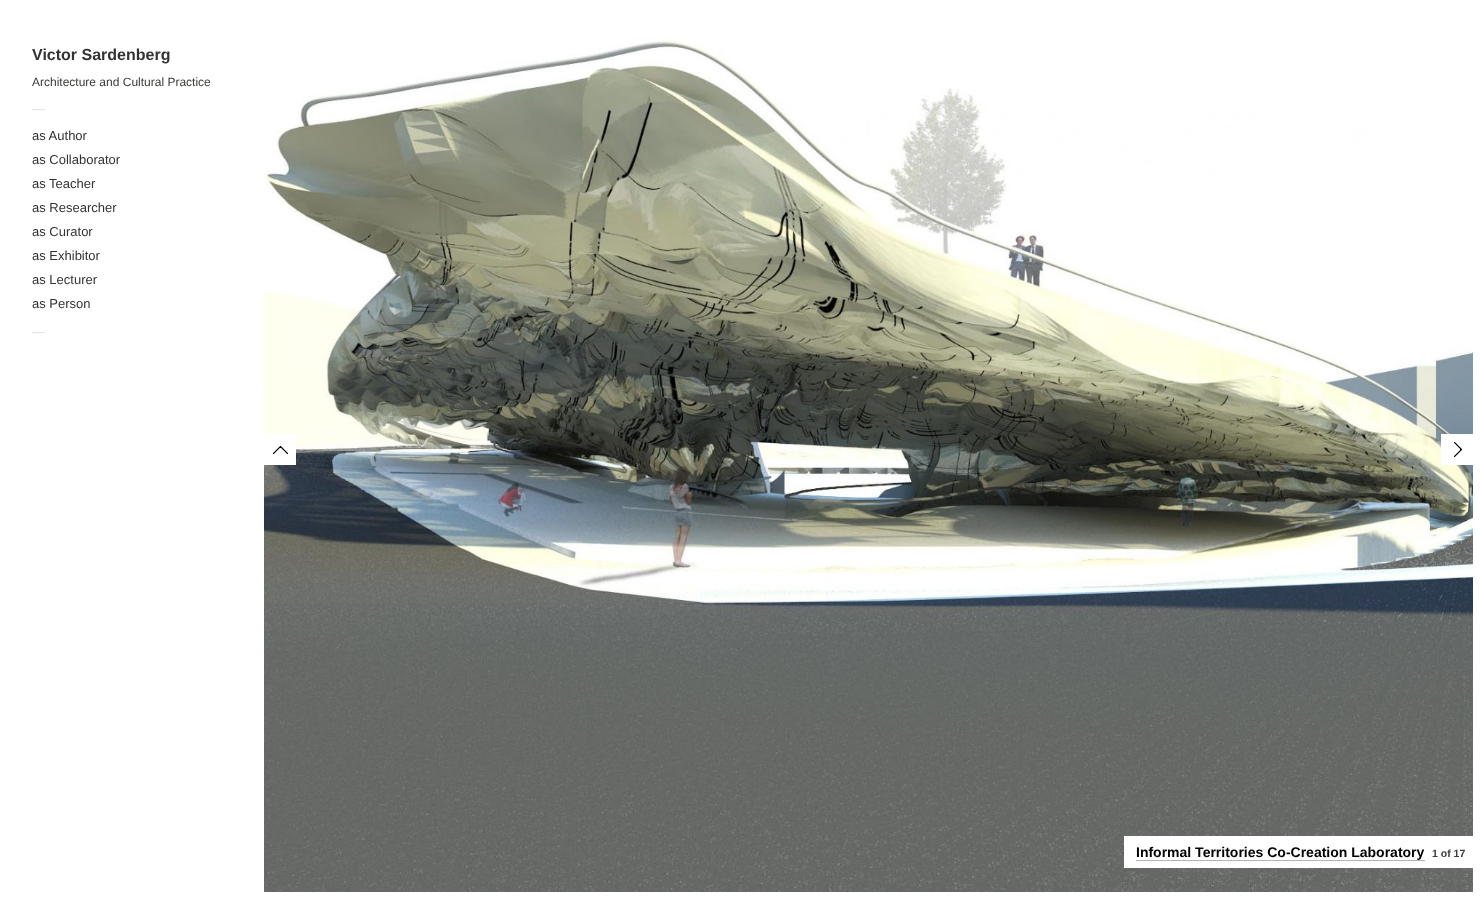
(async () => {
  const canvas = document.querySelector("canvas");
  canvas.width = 1481;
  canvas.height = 900;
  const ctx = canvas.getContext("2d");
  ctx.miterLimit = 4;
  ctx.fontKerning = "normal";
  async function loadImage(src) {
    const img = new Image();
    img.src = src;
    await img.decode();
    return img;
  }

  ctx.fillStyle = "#ffffff";
  ctx.fillRect(0, 0, 1481, 900);
  ctx.drawImage(await loadImage("img/1.png"), 264, 8, 1209, 884);
  ctx.fillRect(264, 434, 32, 31);
  ctx.drawImage(await loadImage("img/2.png"), 273, 446, 15, 8);
  ctx.fillRect(1441, 434, 32, 31);
  ctx.drawImage(await loadImage("img/3.png"), 1454, 442, 8, 15);
  ctx.fillRect(1124, 836, 349, 32);
  ctx.fillStyle = "#b3b3b3";
  ctx.fillRect(1136, 860, 289, 1);
  ctx.font = "bold 16px Liberation Sans";
  ctx.fillStyle = "#333333";
  ctx.fillText("Victor Sardenberg", 32, 60);
  ctx.font = "12px Liberation Sans";
  ctx.fillStyle = "#3b3a37";
  ctx.fillText("Architecture and Cultural Practice", 32, 86);
  ctx.font = "13px Liberation Sans";
  ctx.fillStyle = "#dddddd";
  ctx.fillText("—", 32, 113);
  ctx.fillStyle = "#333333";
  for (const [text, x, y] of [
    ["as Author", 32, 140],
    ["as Collaborator", 32, 164],
    ["as Teacher", 32, 188],
    ["as Researcher", 32, 212],
    ["as Curator", 32, 236],
    ["as Exhibitor", 32, 260],
    ["as Lecturer", 32, 284],
    ["as Person", 32, 308],
  ]) {
    ctx.fillText(text, x, y);
  }
  ctx.fillStyle = "#dddddd";
  ctx.fillText("—", 32, 336);
  ctx.font = "bold 14px Liberation Sans";
  ctx.fillStyle = "#000000";
  ctx.fillText("Informal Territories Co-Creation Laboratory", 1136, 857);
  ctx.font = "bold 10.5px Liberation Sans";
  ctx.fillStyle = "#3b3a37";
  ctx.fillText("1 of 17", 1432, 857);
})();
